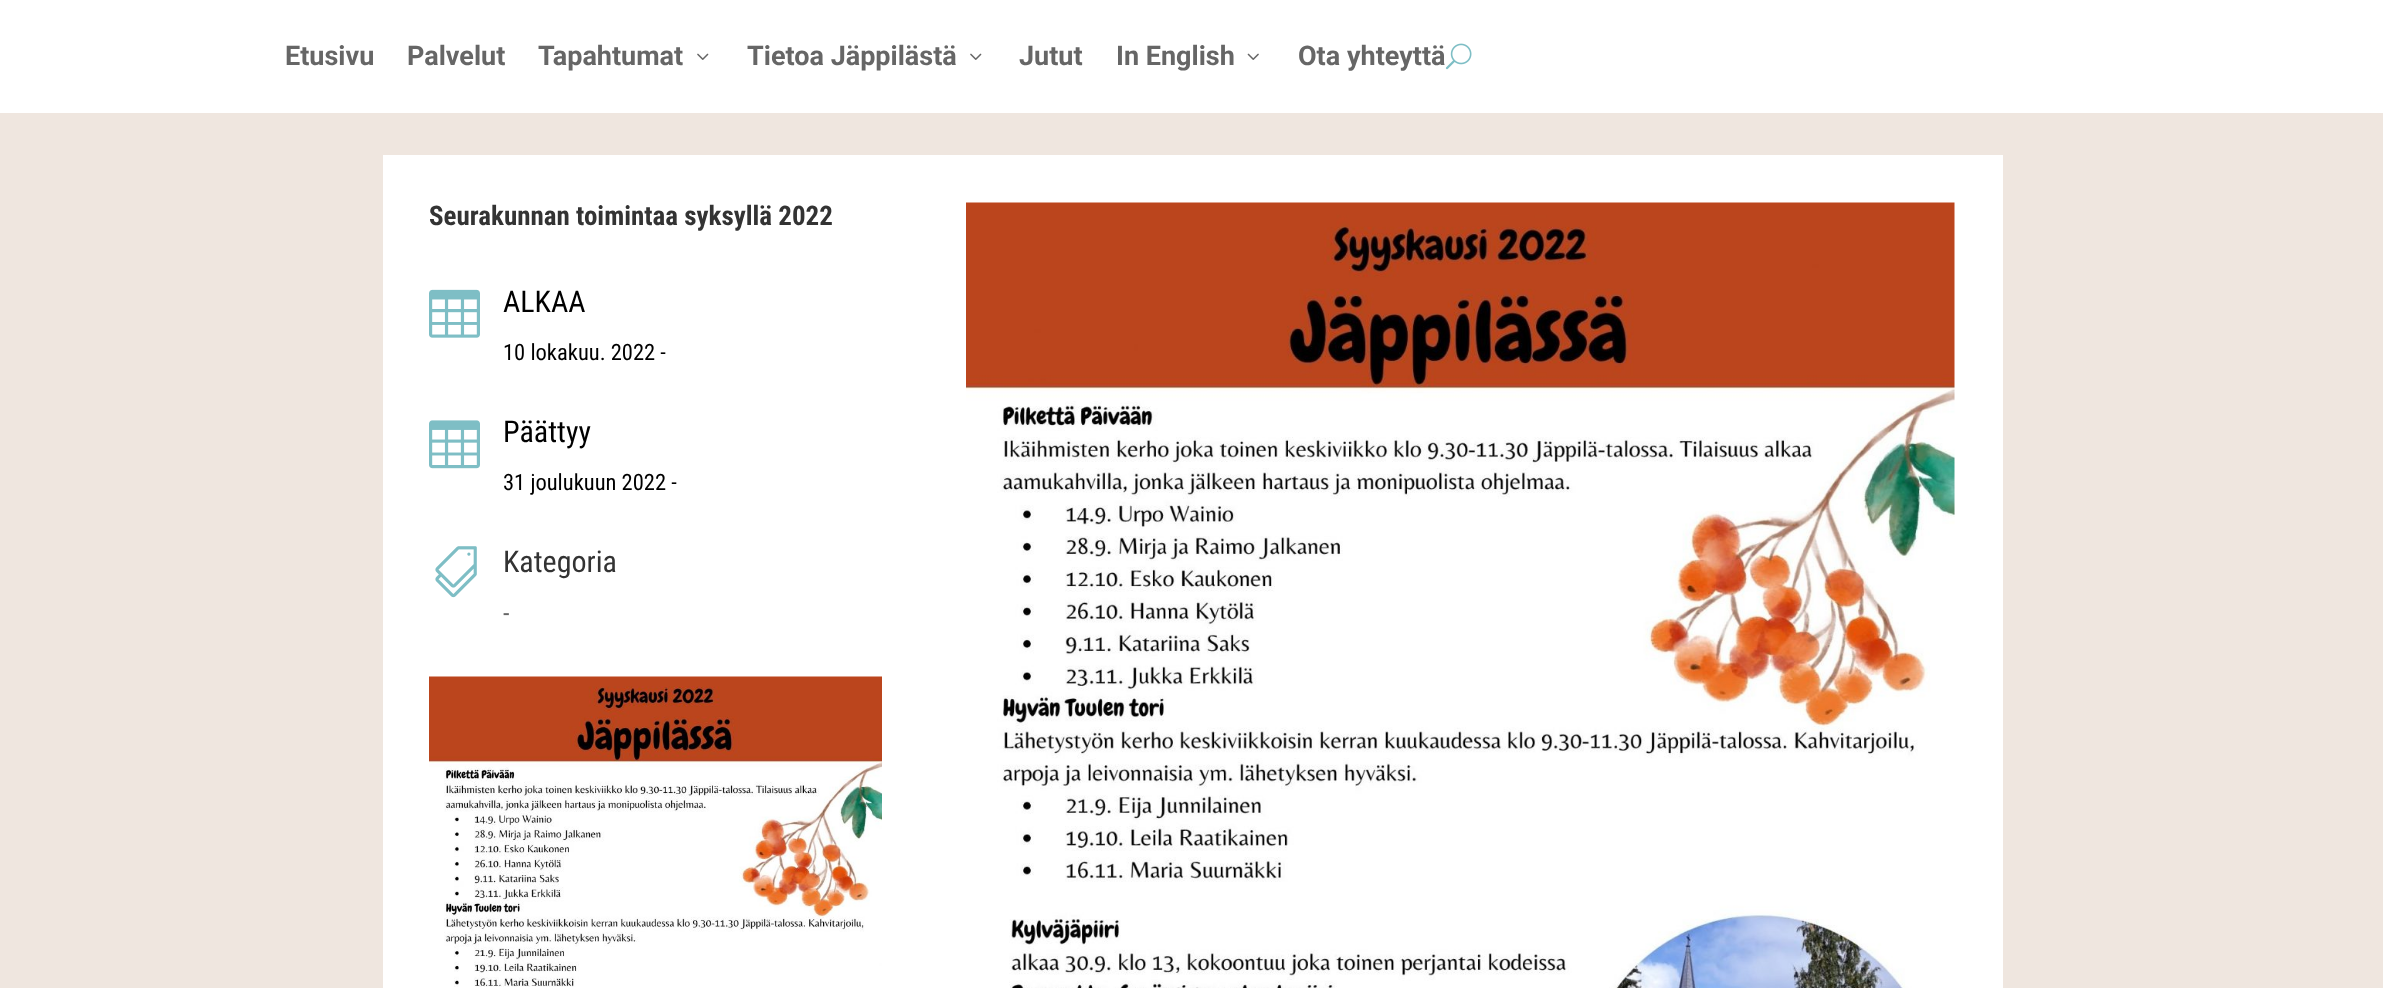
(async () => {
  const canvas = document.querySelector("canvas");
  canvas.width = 2383;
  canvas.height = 988;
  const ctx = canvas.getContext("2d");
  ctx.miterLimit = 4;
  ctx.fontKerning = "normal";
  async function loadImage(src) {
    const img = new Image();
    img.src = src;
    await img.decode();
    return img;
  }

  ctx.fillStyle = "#efe6df";
  ctx.fillRect(0, 0, 2383, 988);
  ctx.fillStyle = "#ffffff";
  ctx.fillRect(0, 0, 2383, 113);
  ctx.drawImage(await loadImage("img/1.png"), 697, 53, 12, 7);
  ctx.drawImage(await loadImage("img/1.png"), 970, 53, 12, 7);
  ctx.drawImage(await loadImage("img/2.png"), 1247, 53, 12, 7);
  ctx.drawImage(await loadImage("img/3.png"), 1445, 43, 27, 27);
  ctx.fillRect(383, 155, 1620, 833);
  ctx.drawImage(await loadImage("img/4.png"), 429, 289, 51, 49);
  ctx.drawImage(await loadImage("img/5.png"), 429, 420, 51, 49);
  ctx.drawImage(await loadImage("img/6.png"), 435, 546, 42, 52);
  ctx.drawImage(await loadImage("img/7.png"), 429, 676, 453, 311);
  ctx.drawImage(await loadImage("img/8.png"), 966, 202, 989, 786);
  ctx.font = "bold 27px Roboto";
  ctx.fillStyle = "#666666";
  for (const [text, x, y] of [
    ["Etusivu", 285, 65],
    ["Palvelut", 407, 65],
    ["Tapahtumat", 538, 65],
    ["Tietoa Jäppilästä", 747, 65],
    ["Jutut", 1019, 65],
    ["In English", 1116, 65],
    ["Ota yhteyttä", 1298, 65],
  ]) {
    ctx.fillText(text, x, y);
  }
  ctx.font = "bold 27px Roboto Condensed";
  ctx.fillStyle = "#333333";
  ctx.fillText("Seurakunnan toimintaa syksyllä 2022", 429, 225);
  ctx.font = "30px Roboto Condensed";
  ctx.fillStyle = "#000000";
  ctx.fillText("ALKAA", 503, 312);
  ctx.font = "22.5px Roboto Condensed";
  ctx.fillText("10 lokakuu. 2022 -", 503, 360);
  ctx.font = "30px Roboto Condensed";
  ctx.fillText("Päättyy", 503, 442);
  ctx.font = "22.5px Roboto Condensed";
  ctx.fillText("31 joulukuun 2022 -", 503, 490);
  ctx.font = "30px Roboto Condensed";
  ctx.fillStyle = "#333333";
  ctx.fillText("Kategoria", 503, 572);
  ctx.font = "26px Roboto Condensed";
  ctx.fillStyle = "#666666";
  ctx.fillText("-", 503, 622);
})();
